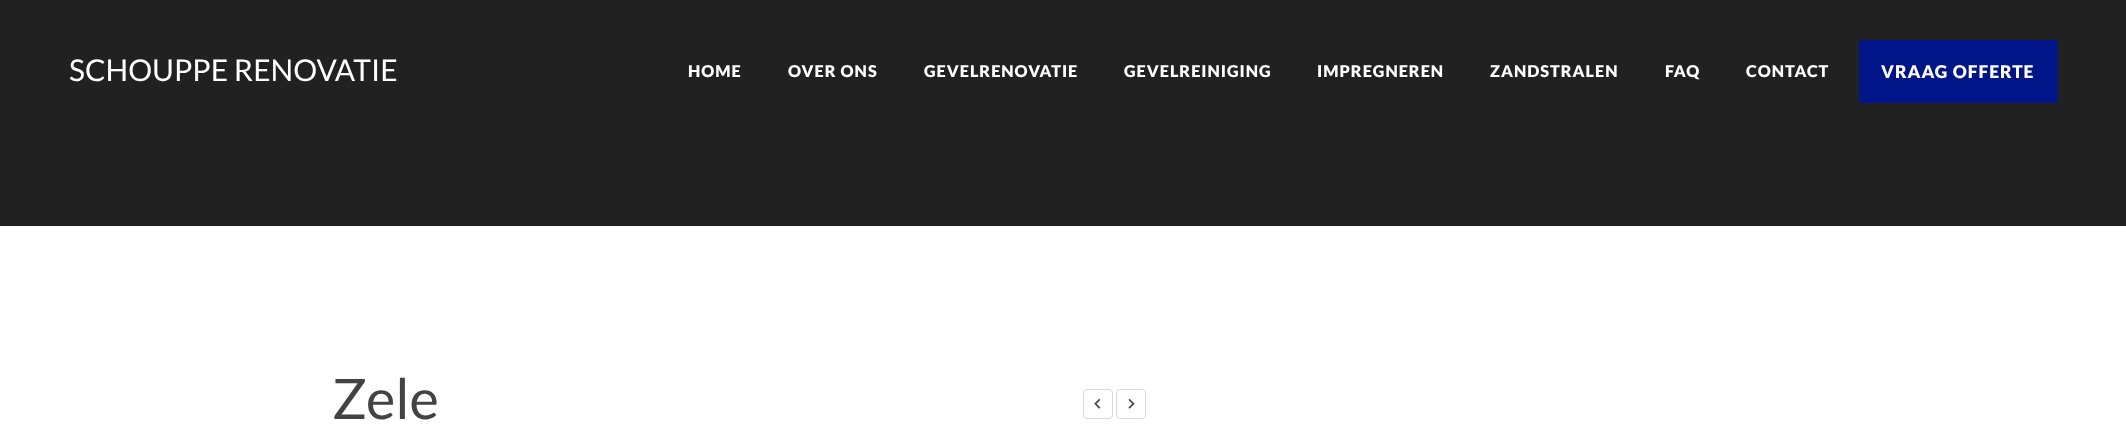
(async () => {
  const canvas = document.querySelector("canvas");
  canvas.width = 2126;
  canvas.height = 446;
  const ctx = canvas.getContext("2d");
  ctx.miterLimit = 4;
  ctx.fontKerning = "normal";
  async function loadImage(src) {
    const img = new Image();
    img.src = src;
    await img.decode();
    return img;
  }

  ctx.fillStyle = "#ffffff";
  ctx.fillRect(0, 0, 2126, 446);
  ctx.fillStyle = "#212121";
  ctx.fillRect(0, 0, 2126, 226);
  ctx.fillStyle = "#001587";
  ctx.beginPath();
  ctx.roundRect(1860.5, 41.5, 196, 60, 2.5);
  ctx.fill();
  ctx.strokeStyle = "#001587";
  ctx.lineWidth = 3;
  ctx.stroke();
  ctx.beginPath();
  ctx.roundRect(1083.5, 389.5, 29, 29, 3.5);
  ctx.strokeStyle = "#d9d9d9";
  ctx.lineWidth = 1;
  ctx.stroke();
  ctx.drawImage(await loadImage("img/1.png"), 1094, 398, 7, 11);
  ctx.beginPath();
  ctx.roundRect(1116.5, 389.5, 29, 29, 3.5);
  ctx.stroke();
  ctx.drawImage(await loadImage("img/2.png"), 1128, 398, 7, 11);
  ctx.font = "30px Lato";
  ctx.fillStyle = "#ffffff";
  ctx.fillText("SCHOUPPE RENOVATIE", 69, 81);
  ctx.letterSpacing = "1px";
  ctx.font = "900 16.25px Lato";
  for (const [text, x, y] of [
    ["HOME", 688, 77],
    ["OVER ONS", 788, 77],
    ["GEVELRENOVATIE", 924, 77],
    ["GEVELREINIGING", 1124, 77],
    ["IMPREGNEREN", 1317, 77],
    ["ZANDSTRALEN", 1490, 77],
    ["FAQ", 1665, 77],
    ["CONTACT", 1746, 77],
  ]) {
    ctx.fillText(text, x, y);
  }
  ctx.font = "900 17.5px Lato";
  ctx.fillText("VRAAG OFFERTE", 1881, 78);
  ctx.letterSpacing = "0px";
  ctx.font = "56px Lato";
  ctx.fillStyle = "#434345";
  ctx.fillText("Zele", 332, 419);
})();
